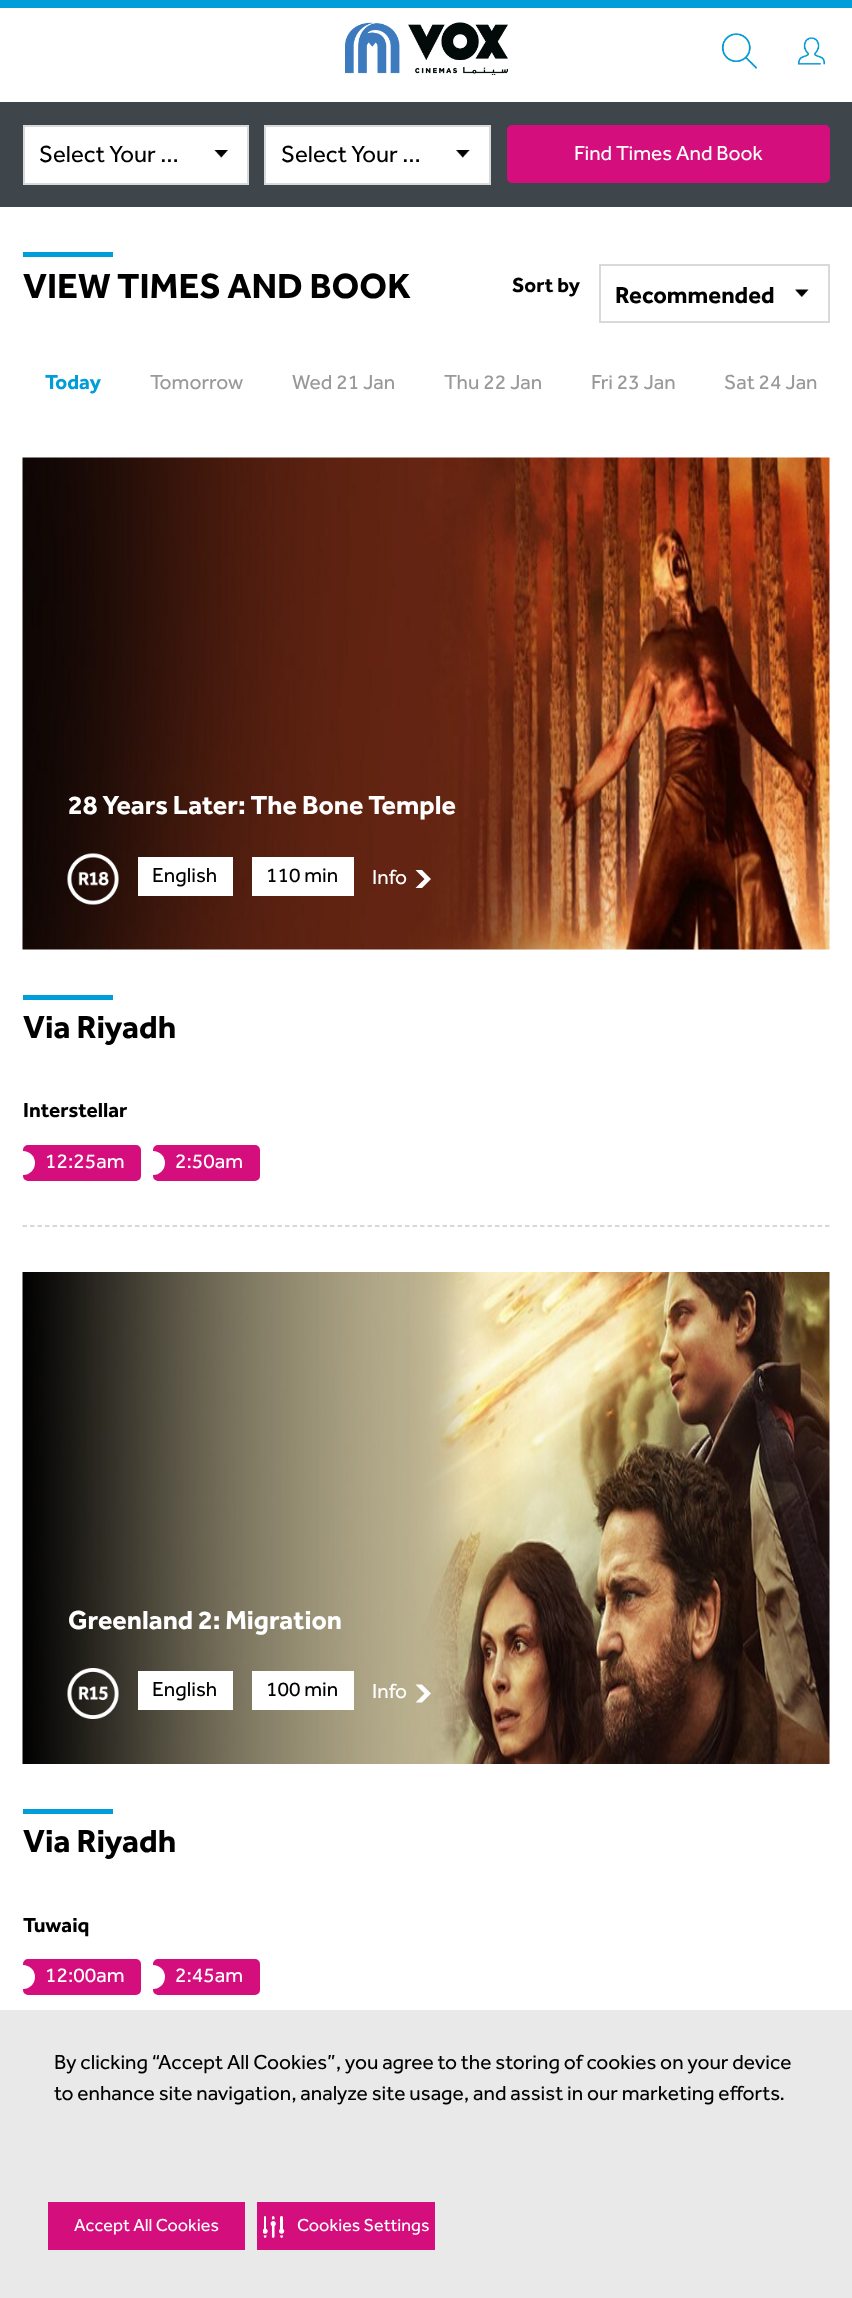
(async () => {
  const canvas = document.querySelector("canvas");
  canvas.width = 852;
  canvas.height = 2298;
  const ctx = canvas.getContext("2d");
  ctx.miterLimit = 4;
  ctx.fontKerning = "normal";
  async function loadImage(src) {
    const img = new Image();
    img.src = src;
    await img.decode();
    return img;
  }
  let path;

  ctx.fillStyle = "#ffffff";
  ctx.fillRect(0, 0, 852, 2298);
  ctx.fillStyle = "#009ddb";
  ctx.fillRect(0, 0, 852, 8);
  ctx.drawImage(await loadImage("img/1.png"), 345, 22, 163, 53);
  ctx.drawImage(await loadImage("img/2.png"), 721, 33, 36, 36);
  ctx.drawImage(await loadImage("img/3.png"), 798, 37, 27, 28);
  ctx.fillStyle = "#3e454b";
  ctx.fillRect(0, 102, 852, 105);
  ctx.fillStyle = "#ffffff";
  ctx.fillRect(25, 127, 222, 56);
  ctx.drawImage(await loadImage("img/4.png"), 214, 150, 14, 8);
  ctx.strokeStyle = "#d9d9d9";
  ctx.lineWidth = 2;
  ctx.strokeRect(24, 126, 224, 58);
  ctx.fillRect(266, 127, 223, 56);
  ctx.drawImage(await loadImage("img/5.png"), 456, 150, 14, 8);
  ctx.strokeRect(265, 126, 225, 58);
  ctx.fillStyle = "#d40f7d";
  ctx.beginPath();
  ctx.roundRect(508, 126, 321, 56, 4);
  ctx.fill();
  ctx.strokeStyle = "#d40f7d";
  ctx.stroke();
  ctx.fillStyle = "#009ddb";
  ctx.fillRect(23, 252, 90, 5);
  ctx.drawImage(await loadImage("img/6.png"), 795, 289, 14, 8);
  ctx.strokeStyle = "#d9d9d9";
  ctx.strokeRect(600, 265, 229, 57);
  ctx.drawImage(await loadImage("img/7.png"), 22, 457, 808, 493);
  ctx.drawImage(await loadImage("img/8.png"), 67, 853, 52, 52);
  ctx.fillStyle = "#ffffff";
  ctx.fillRect(138, 857, 95, 39);
  ctx.fillRect(252, 857, 102, 39);
  path = new Path2D("M415.5 870H422L431 879L422 888H415.5L424.5 879Z");
  ctx.fill(path);
  ctx.fillStyle = "#009ddb";
  ctx.fillRect(23, 995, 90, 5);
  ctx.fillStyle = "#d40f7d";
  ctx.beginPath();
  ctx.roundRect(24, 1146, 116, 34, 4);
  ctx.fill();
  ctx.strokeStyle = "#d40f7d";
  ctx.stroke();
  ctx.fillStyle = "#ffffff";
  ctx.beginPath();
  ctx.roundRect(21, 1151, 14, 24, [0, 12, 12, 0]);
  ctx.fill();
  ctx.fillStyle = "#d40f7d";
  ctx.beginPath();
  ctx.roundRect(154, 1146, 105, 34, 4);
  ctx.fill();
  ctx.stroke();
  ctx.fillStyle = "#ffffff";
  ctx.beginPath();
  ctx.roundRect(152, 1151, 13, 24, [0, 12, 12, 0]);
  ctx.fill();
  path = new Path2D("M22.5 1226H829.5");
  ctx.strokeStyle = "#cccccc";
  ctx.lineWidth = 1.5;
  ctx.setLineDash([4.5, 3]);
  ctx.stroke(path);
  ctx.drawImage(await loadImage("img/9.png"), 22, 1272, 808, 492);
  ctx.drawImage(await loadImage("img/10.png"), 67, 1668, 52, 51);
  ctx.fillRect(138, 1671, 95, 39);
  ctx.fillRect(252, 1671, 102, 39);
  path = new Path2D("M415.5 1684.5H422L431 1693.5L422 1702.5H415.5L424.5 1693.5Z");
  ctx.fill(path);
  ctx.fillStyle = "#009ddb";
  ctx.fillRect(23, 1809, 90, 5);
  ctx.fillStyle = "#d40f7d";
  ctx.beginPath();
  ctx.roundRect(24, 1960, 116, 34, 4);
  ctx.fill();
  ctx.strokeStyle = "#d40f7d";
  ctx.lineWidth = 2;
  ctx.setLineDash([]);
  ctx.stroke();
  ctx.fillStyle = "#ffffff";
  ctx.beginPath();
  ctx.roundRect(21, 1965, 14, 24, [0, 12, 12, 0]);
  ctx.fill();
  ctx.fillStyle = "#d40f7d";
  ctx.beginPath();
  ctx.roundRect(154, 1960, 105, 34, 4);
  ctx.fill();
  ctx.stroke();
  ctx.fillStyle = "#ffffff";
  ctx.beginPath();
  ctx.roundRect(152, 1965, 13, 24, [0, 12, 12, 0]);
  ctx.fill();
  for (const [x, y, w, h, color] of [
    [0, 2010, 852, 288, "#e9e9e9"],
    [48, 2202, 197, 48, "#d40f7d"],
    [257, 2202, 178, 48, "#d40f7d"],
  ]) {
    ctx.fillStyle = color;
    ctx.fillRect(x, y, w, h);
  }
  ctx.drawImage(await loadImage("img/11.png"), 263, 2216, 22, 22);
  ctx.font = "24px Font";
  ctx.fillStyle = "#000000";
  ctx.fillText("Select Your …", 39, 162);
  ctx.fillText("Select Your …", 281, 162);
  ctx.font = "21px Font";
  ctx.fillStyle = "#ffffff";
  ctx.fillText("Find Times And Book", 574, 160);
  ctx.font = "bold 36px Font";
  ctx.fillStyle = "#000000";
  ctx.fillText("VIEW TIMES AND BOOK", 23, 298);
  ctx.font = "bold 21px Font";
  ctx.fillText("Sort by", 512, 292);
  ctx.font = "bold 24px Font";
  ctx.fillText("Recommended", 615, 303);
  ctx.font = "bold 21px Font";
  ctx.fillStyle = "#009ddb";
  ctx.fillText("Today", 45, 389);
  ctx.font = "21px Font";
  ctx.fillStyle = "#999999";
  for (const [text, x, y] of [
    ["Tomorrow", 150, 389],
    ["Wed 21 Jan", 292, 389],
    ["Thu 22 Jan", 444, 389],
    ["Fri 23 Jan", 591, 389],
    ["Sat 24 Jan", 724, 389],
  ]) {
    ctx.fillText(text, x, y);
  }
  ctx.font = "bold 27px Font";
  ctx.fillStyle = "#ffffff";
  ctx.fillText("28 Years Later: The Bone Temple", 68, 814);
  ctx.font = "21px Font";
  ctx.fillStyle = "#000000";
  ctx.fillText("English", 152, 882);
  ctx.fillText("110 min", 266, 882);
  ctx.fillStyle = "#ffffff";
  ctx.fillText("Info", 372, 884);
  ctx.font = "bold 33px Font";
  ctx.fillStyle = "#000000";
  ctx.fillText("Via Riyadh", 23, 1038);
  ctx.font = "bold 21px Font";
  ctx.fillText("Interstellar", 23, 1117);
  ctx.font = "21px Font";
  ctx.fillStyle = "#ffffff";
  ctx.fillText("12:25am", 45, 1168);
  ctx.fillText("2:50am", 175, 1168);
  ctx.font = "bold 27px Font";
  ctx.fillText("Greenland 2: Migration", 68, 1629);
  ctx.font = "21px Font";
  ctx.fillStyle = "#000000";
  ctx.fillText("English", 152, 1696);
  ctx.fillText("100 min", 266, 1696);
  ctx.fillStyle = "#ffffff";
  ctx.fillText("Info", 372, 1698);
  ctx.font = "bold 33px Font";
  ctx.fillStyle = "#000000";
  ctx.fillText("Via Riyadh", 23, 1852);
  ctx.font = "bold 21px Font";
  ctx.fillText("Tuwaiq", 23, 1932);
  ctx.font = "21px Font";
  ctx.fillStyle = "#ffffff";
  ctx.fillText("12:00am", 45, 1982);
  ctx.fillText("2:45am", 175, 1982);
  ctx.fillStyle = "#000000";
  ctx.fillText("By clicking “Accept All Cookies”, you agree to the storing of cookies on your device", 54, 2069);
  ctx.fillText("to enhance site navigation, analyze site usage, and assist in our marketing efforts.", 54, 2100);
  ctx.font = "18px Font";
  ctx.fillStyle = "#ffffff";
  ctx.fillText("Accept All Cookies", 74, 2231);
  ctx.fillText("Cookies Settings", 297, 2231);
})();
